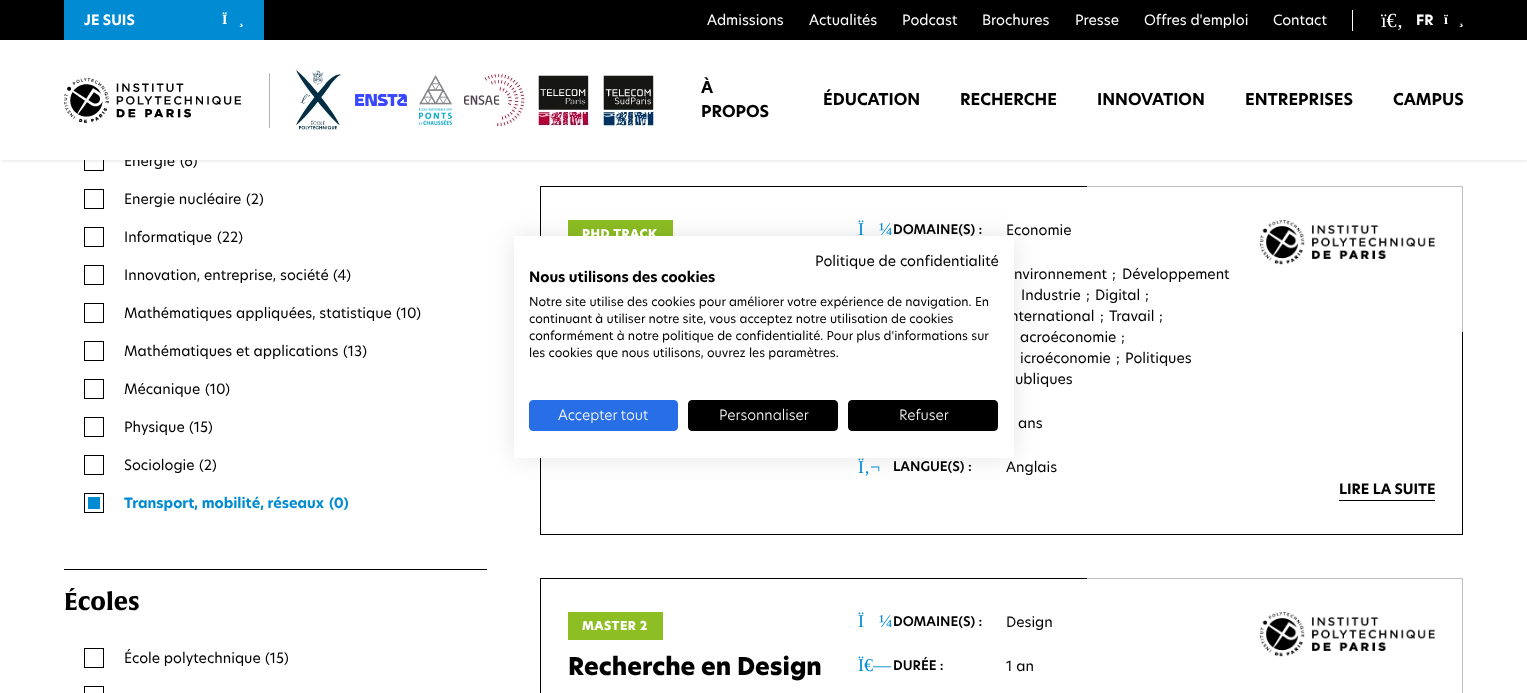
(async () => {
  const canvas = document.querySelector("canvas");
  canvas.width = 1527;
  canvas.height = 693;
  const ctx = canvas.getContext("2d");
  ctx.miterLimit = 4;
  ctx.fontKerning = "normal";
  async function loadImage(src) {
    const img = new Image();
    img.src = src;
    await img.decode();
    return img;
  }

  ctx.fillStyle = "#ffffff";
  ctx.fillRect(0, 0, 1527, 693);
  ctx.strokeStyle = "#000000";
  ctx.strokeRect(84.5, 151.5, 19, 19);
  ctx.fillStyle = "rgba(0, 0, 0, 0.15)";
  ctx.filter = "blur(2px)";
  ctx.beginPath();
  ctx.rect(1, 0, 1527, 160);
  ctx.fill();
  ctx.filter = "none";
  for (const [x, y, w, h, color] of [
    [0, 0, 1527, 40, "#000000"],
    [64, 0, 200, 40, "#008bd2"],
    [1352, 10, 1, 21, "#ffffff"],
  ]) {
    ctx.fillStyle = color;
    ctx.fillRect(x, y, w, h);
  }
  ctx.strokeRect(84.5, 189.5, 19, 19);
  ctx.strokeRect(84.5, 227.5, 19, 19);
  ctx.strokeRect(84.5, 265.5, 19, 19);
  ctx.strokeRect(84.5, 303.5, 19, 19);
  ctx.strokeRect(84.5, 341.5, 19, 19);
  ctx.strokeRect(84.5, 379.5, 19, 19);
  ctx.strokeRect(84.5, 417.5, 19, 19);
  ctx.strokeRect(84.5, 455.5, 19, 19);
  ctx.fillStyle = "#018bd3";
  ctx.fillRect(88, 497, 12, 12);
  ctx.strokeRect(84.5, 493.5, 19, 19);
  ctx.fillStyle = "#000000";
  ctx.fillRect(64, 569, 423, 1);
  ctx.strokeRect(84.5, 648.5, 19, 19);
  ctx.strokeRect(84.5, 686.5, 19, 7);
  ctx.strokeRect(540.5, 186.5, 922, 348);
  ctx.fillStyle = "#8dbe23";
  ctx.fillRect(568, 220, 105, 16);
  ctx.fillStyle = "rgba(255, 255, 255, 0.75)";
  ctx.fillRect(1087, 186, 376, 146);
  ctx.drawImage(await loadImage("img/8.png"), 1260, 220, 175, 45);
  ctx.fillStyle = "#000000";
  ctx.fillRect(1339, 500, 96, 1);
  ctx.strokeRect(540.5, 578.5, 922, 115);
  ctx.fillStyle = "rgba(255, 255, 255, 0.75)";
  ctx.fillRect(1087, 578, 376, 115);
  ctx.fillStyle = "#8dbe23";
  ctx.fillRect(568, 612, 95, 28);
  ctx.drawImage(await loadImage("img/8.png"), 1260, 612, 175, 45);
  ctx.fillStyle = "rgba(0, 0, 0, 0.1)";
  ctx.filter = "blur(12px)";
  ctx.beginPath();
  ctx.rect(514, 236, 500, 222);
  ctx.fill();
  ctx.filter = "none";
  ctx.font = "bold 14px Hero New";
  ctx.fillStyle = "#ffffff";
  ctx.fillText("JE SUIS", 84, 25);
  ctx.font = "bold 14px Liberation Serif";
  ctx.fillText("Ï", 222, 24);
  ctx.fillText("¸", 239, 24);
  ctx.font = "14px Hero New";
  for (const [text, x, y] of [
    ["Admissions", 707, 25],
    ["Actualités", 809, 25],
    ["Podcast", 902, 25],
    ["Brochures", 982, 25],
    ["Presse", 1075, 25],
    ["Offres d'emploi", 1144, 25],
    ["Contact", 1273, 25],
  ]) {
    ctx.fillText(text, x, y);
  }
  ctx.font = "20px Liberation Serif";
  ctx.fillText("ï€‚", 1381, 27);
  ctx.font = "bold 14px Hero New";
  ctx.fillText("FR", 1416, 25);
  ctx.font = "bold 14px Liberation Serif";
  ctx.fillText("ï", 1444, 24);
  ctx.fillText("¸", 1459, 24);
  ctx.font = "14px Hero New";
  ctx.fillStyle = "#000000";
  ctx.fillText("Energie", 124, 166);
  ctx.fillText("(6)", 180, 166);
  ctx.fillStyle = "#ffffff";
  ctx.fillRect(0, 40, 1527, 120);
  ctx.font = "bold 16px Hero New";
  ctx.fillStyle = "#000000";
  for (const [text, x, y] of [
    ["CAMPUS", 1393, 105],
    ["ENTREPRISES", 1245, 105],
    ["INNOVATION", 1097, 105],
    ["RECHERCHE", 960, 105],
    ["ÉDUCATION", 823, 105],
    ["PROPOS", 701, 117],
    ["À", 701, 93],
  ]) {
    ctx.fillText(text, x, y);
  }
  ctx.drawImage(await loadImage("img/7.png"), 602, 75, 53, 52);
  ctx.drawImage(await loadImage("img/6.png"), 537, 75, 53, 52);
  ctx.drawImage(await loadImage("img/5.png"), 464, 74, 61, 53);
  ctx.drawImage(await loadImage("img/4.png"), 419, 75, 33, 50);
  ctx.drawImage(await loadImage("img/3.png"), 355, 94, 52, 12);
  ctx.drawImage(await loadImage("img/2.png"), 296, 70, 46, 60);
  ctx.drawImage(await loadImage("img/1.png"), 64, 78, 177, 45);
  ctx.fillStyle = "#b3b3b3";
  ctx.fillRect(269, 73, 1, 55);
  ctx.font = "14px Hero New";
  ctx.fillStyle = "#000000";
  for (const [text, x, y] of [
    ["Energie nucléaire", 124, 204],
    ["(2)", 246, 204],
    ["Informatique", 124, 242],
    ["(22)", 217, 242],
    ["Innovation, entreprise, société", 124, 280],
    ["(4)", 333, 280],
    ["Mathématiques appliquées, statistique", 124, 318],
    ["(10)", 396, 318],
    ["Mathématiques et applications", 124, 356],
    ["(13)", 343, 356],
    ["Mécanique", 124, 394],
    ["(10)", 205, 394],
    ["Physique", 124, 432],
    ["(15)", 189, 432],
    ["Sociologie", 124, 470],
    ["(2)", 199, 470],
  ]) {
    ctx.fillText(text, x, y);
  }
  ctx.font = "bold 14px Hero New";
  ctx.fillStyle = "#008bd2";
  ctx.fillText("Transport, mobilité, réseaux", 124, 508);
  ctx.fillText("(0)", 329, 508);
  ctx.font = "bold 24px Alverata";
  ctx.fillStyle = "#000000";
  ctx.fillText("Écoles", 64, 610);
  ctx.font = "14px Hero New";
  ctx.fillText("École polytechnique", 124, 663);
  ctx.fillText("(15)", 265, 663);
  ctx.letterSpacing = "0.5px";
  ctx.font = "800 12px Hero New";
  ctx.fillStyle = "#ffffff";
  ctx.fillText("PHD TRACK", 582, 238);
  ctx.letterSpacing = "0px";
  ctx.font = "18px Liberation Serif";
  ctx.fillStyle = "#008bd2";
  ctx.fillText("Ï", 858, 235);
  ctx.fillText("¼", 879, 235);
  ctx.font = "600 13px Hero New";
  ctx.fillStyle = "#000000";
  ctx.fillText("DOMAINE(S) :", 893, 234);
  ctx.font = "14px Hero New";
  for (const [text, x, y] of [
    ["Economie", 1006, 235],
    ["nvironnement", 1014, 279],
    [";", 1112, 279],
    ["Développement", 1122, 279],
    ["Industrie", 1021, 300],
    [";", 1086, 300],
    ["Digital", 1095, 300],
    [";", 1145, 300],
    ["nternational", 1010, 321],
    [";", 1100, 321],
    ["Travail", 1109, 321],
    [";", 1159, 321],
    ["acroéconomie", 1020, 342],
    [";", 1121, 342],
    ["icroéconomie", 1020, 363],
    [";", 1116, 363],
    ["Politiques", 1125, 363],
    ["ubliques", 1015, 384],
    ["ans", 1018, 428],
  ]) {
    ctx.fillText(text, x, y);
  }
  ctx.font = "18px Liberation Serif";
  ctx.fillStyle = "#008bd2";
  ctx.fillText("Ï‚¬", 858, 473);
  ctx.font = "600 13px Hero New";
  ctx.fillStyle = "#000000";
  ctx.fillText("LANGUE(S) :", 893, 471);
  ctx.font = "14px Hero New";
  ctx.fillText("Anglais", 1006, 472);
  ctx.font = "bold 14px Hero New";
  ctx.fillText("LIRE LA SUITE", 1339, 494);
  ctx.font = "18px Liberation Serif";
  ctx.fillStyle = "#008bd2";
  ctx.fillText("Ï", 858, 627);
  ctx.fillText("¼", 879, 627);
  ctx.font = "600 13px Hero New";
  ctx.fillStyle = "#000000";
  ctx.fillText("DOMAINE(S) :", 893, 626);
  ctx.font = "14px Hero New";
  ctx.fillText("Design", 1006, 627);
  ctx.font = "18px Liberation Serif";
  ctx.fillStyle = "#008bd2";
  ctx.fillText("Ï€—", 858, 671);
  ctx.font = "600 13px Hero New";
  ctx.fillStyle = "#000000";
  ctx.fillText("DURÉE :", 893, 670);
  ctx.font = "14px Hero New";
  ctx.fillText("1 an", 1006, 671);
  ctx.letterSpacing = "0.5px";
  ctx.font = "800 12px Hero New";
  ctx.fillStyle = "#ffffff";
  ctx.fillText("MASTER 2", 582, 630);
  ctx.letterSpacing = "0px";
  ctx.font = "800 24px Hero New";
  ctx.fillStyle = "#000000";
  ctx.fillText("Recherche en Design", 568, 675);
  ctx.fillStyle = "#ffffff";
  ctx.fillRect(514, 236, 500, 222);
  ctx.font = "14px Hero New";
  ctx.fillStyle = "#000000";
  ctx.fillText("Politique de confidentialité", 815, 266);
  ctx.font = "bold 14px Hero New";
  ctx.fillText("Nous utilisons des cookies", 529, 282);
  ctx.font = "12px Hero New";
  for (const [text, x, y] of [
    ["Notre site utilise des cookies pour améliorer votre expérience de navigation. En", 529, 306],
    ["continuant à utiliser notre site, vous acceptez notre utilisation de cookies", 529, 323],
    ["conformément à notre politique de confidentialité. Pour plus d'informations sur", 529, 340],
    ["les cookies que nous utilisons, ouvrez les paramètres.", 529, 357],
  ]) {
    ctx.fillText(text, x, y);
  }
  ctx.fillStyle = "#286ee6";
  ctx.beginPath();
  ctx.roundRect(529.5, 400.5, 148, 30, 3.5);
  ctx.fill();
  ctx.strokeStyle = "#286ee6";
  ctx.stroke();
  ctx.font = "300 14px Hero New";
  ctx.fillStyle = "#ffffff";
  ctx.fillText("Accepter tout", 558, 420);
  ctx.fillStyle = "#000000";
  ctx.beginPath();
  ctx.roundRect(688.5, 400.5, 149, 30, 3.5);
  ctx.fill();
  ctx.strokeStyle = "#000000";
  ctx.stroke();
  ctx.fillStyle = "#ffffff";
  ctx.fillText("Personnaliser", 719, 420);
  ctx.fillStyle = "#000000";
  ctx.beginPath();
  ctx.roundRect(848.5, 400.5, 149, 30, 3.5);
  ctx.fill();
  ctx.stroke();
  ctx.fillStyle = "#ffffff";
  ctx.fillText("Refuser", 899, 420);
})();
